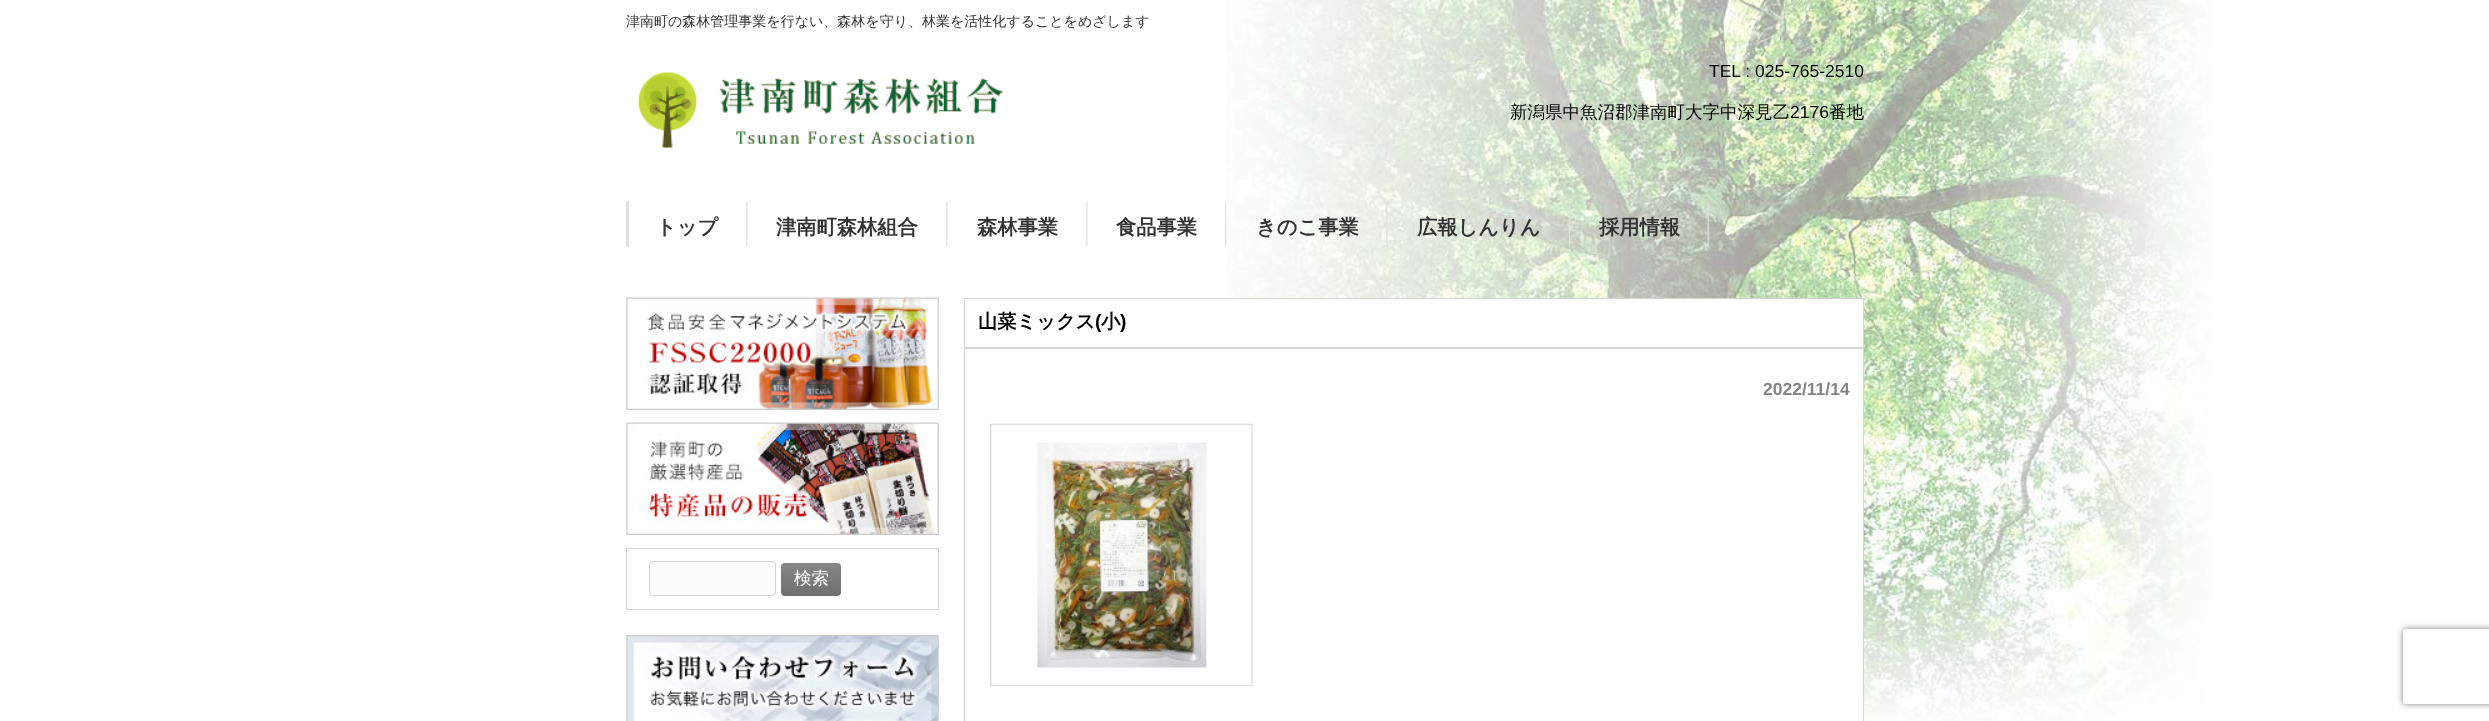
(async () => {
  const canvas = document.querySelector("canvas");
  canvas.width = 2489;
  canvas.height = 721;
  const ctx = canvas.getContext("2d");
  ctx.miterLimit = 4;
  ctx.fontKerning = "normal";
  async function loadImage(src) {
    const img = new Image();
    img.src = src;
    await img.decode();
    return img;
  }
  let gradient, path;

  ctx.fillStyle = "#ffffff";
  ctx.fillRect(0, 0, 2489, 721);
  ctx.drawImage(await loadImage("img/1.png"), 1226, 0, 983, 721);
  ctx.drawImage(await loadImage("img/2.png"), 638, 72, 366, 76);
  ctx.fillStyle = "#e0e0e0";
  ctx.fillRect(626, 201, 3, 46);
  ctx.drawImage(await loadImage("img/3.png"), 746, 201, 2, 46);
  ctx.drawImage(await loadImage("img/3.png"), 946, 201, 2, 46);
  ctx.drawImage(await loadImage("img/3.png"), 1086, 201, 2, 46);
  ctx.drawImage(await loadImage("img/4.png"), 1225, 201, 2, 46);
  ctx.drawImage(await loadImage("img/5.png"), 1386, 201, 2, 45);
  ctx.drawImage(await loadImage("img/6.png"), 1568, 201, 2, 46);
  ctx.drawImage(await loadImage("img/7.png"), 1707, 201, 2, 46);
  ctx.fillStyle = "#ffffff";
  ctx.fillRect(1226, 299, 637, 48);
  ctx.strokeStyle = "#d5d5d5";
  ctx.strokeRect(964.5, 298.5, 899, 49);
  ctx.fillRect(1226, 349, 637, 372);
  ctx.strokeRect(964.5, 348.5, 899, 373);
  ctx.drawImage(await loadImage("img/8.png"), 990, 423, 263, 264);
  ctx.drawImage(await loadImage("img/9.png"), 626, 297, 313, 113);
  ctx.drawImage(await loadImage("img/10.png"), 626, 422, 313, 113);
  ctx.strokeRect(626.5, 548.5, 312, 61);
  ctx.fillStyle = "#fcfcfc";
  ctx.beginPath();
  ctx.roundRect(649.5, 561.5, 126, 34, 3.5);
  ctx.fill();
  ctx.strokeStyle = "#d4d4d7";
  ctx.stroke();
  gradient = ctx.createLinearGradient(811, 563, 811, 596);
  gradient.addColorStop(0, "#878787");
  gradient.addColorStop(1, "#6f6f6f");
  ctx.fillStyle = gradient;
  ctx.beginPath();
  ctx.roundRect(781, 563, 60, 33, 4);
  ctx.fill();
  ctx.drawImage(await loadImage("img/11.png"), 626, 635, 313, 86);
  ctx.save();
  path = new Path2D("M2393 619H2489V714H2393ZM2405.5 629H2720.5C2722 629 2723 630 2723 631.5V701.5C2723 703 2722 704 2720.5 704H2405.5C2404 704 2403 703 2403 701.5V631.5C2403 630 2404 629 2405.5 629Z");
  ctx.clip(path, "evenodd");
  ctx.fillStyle = "#808080";
  ctx.filter = "blur(3px)";
  ctx.beginPath();
  ctx.roundRect(2403, 629, 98, 75, 2.5);
  ctx.fill();
  ctx.filter = "none";
  ctx.restore();
  ctx.font = "500 14px WenQuanYi Zen Hei";
  ctx.fillStyle = "#333333";
  ctx.fillText("津南町の森林管理事業を行ない、森林を守り、林業を活性化することをめざします", 626, 26);
  ctx.font = "17.5px Liberation Sans";
  ctx.fillStyle = "#000000";
  ctx.fillText("TEL : 025-765-2510", 1709, 77);
  ctx.font = "500 17.5px WenQuanYi Zen Hei";
  ctx.fillText("新潟県中魚沼郡津南町大字中深見乙", 1510, 118);
  ctx.font = "17.5px Liberation Sans";
  ctx.fillText("2176", 1790, 118);
  ctx.font = "500 17.5px WenQuanYi Zen Hei";
  ctx.fillText("番地", 1829, 118);
  ctx.font = "bold 20.25px WenQuanYi Zen Hei";
  ctx.fillStyle = "#333333";
  for (const [text, x, y] of [
    ["トップ", 656, 234],
    ["津南町森林組合", 776, 234],
    ["森林事業", 977, 234],
    ["食品事業", 1116, 234],
    ["きのこ事業", 1256, 234],
    ["広報しんりん", 1417, 234],
    ["採用情報", 1599, 234],
  ]) {
    ctx.fillText(text, x, y);
  }
  ctx.font = "bold 19.25px WenQuanYi Zen Hei";
  ctx.fillStyle = "#000000";
  ctx.fillText("山菜ミックス", 978, 328);
  ctx.font = "bold 19.25px Liberation Sans";
  ctx.fillText("(", 1095, 328);
  ctx.font = "bold 19.25px WenQuanYi Zen Hei";
  ctx.fillText("小", 1101, 328);
  ctx.font = "bold 19.25px Liberation Sans";
  ctx.fillText(")", 1120, 328);
  ctx.font = "bold 17.5px Liberation Sans";
  ctx.fillStyle = "#858585";
  ctx.fillText("2022/11/14", 1763, 395);
  ctx.font = "500 17.5px WenQuanYi Zen Hei";
  ctx.fillStyle = "#ffffff";
  ctx.fillText("検索", 794, 584);
})();
